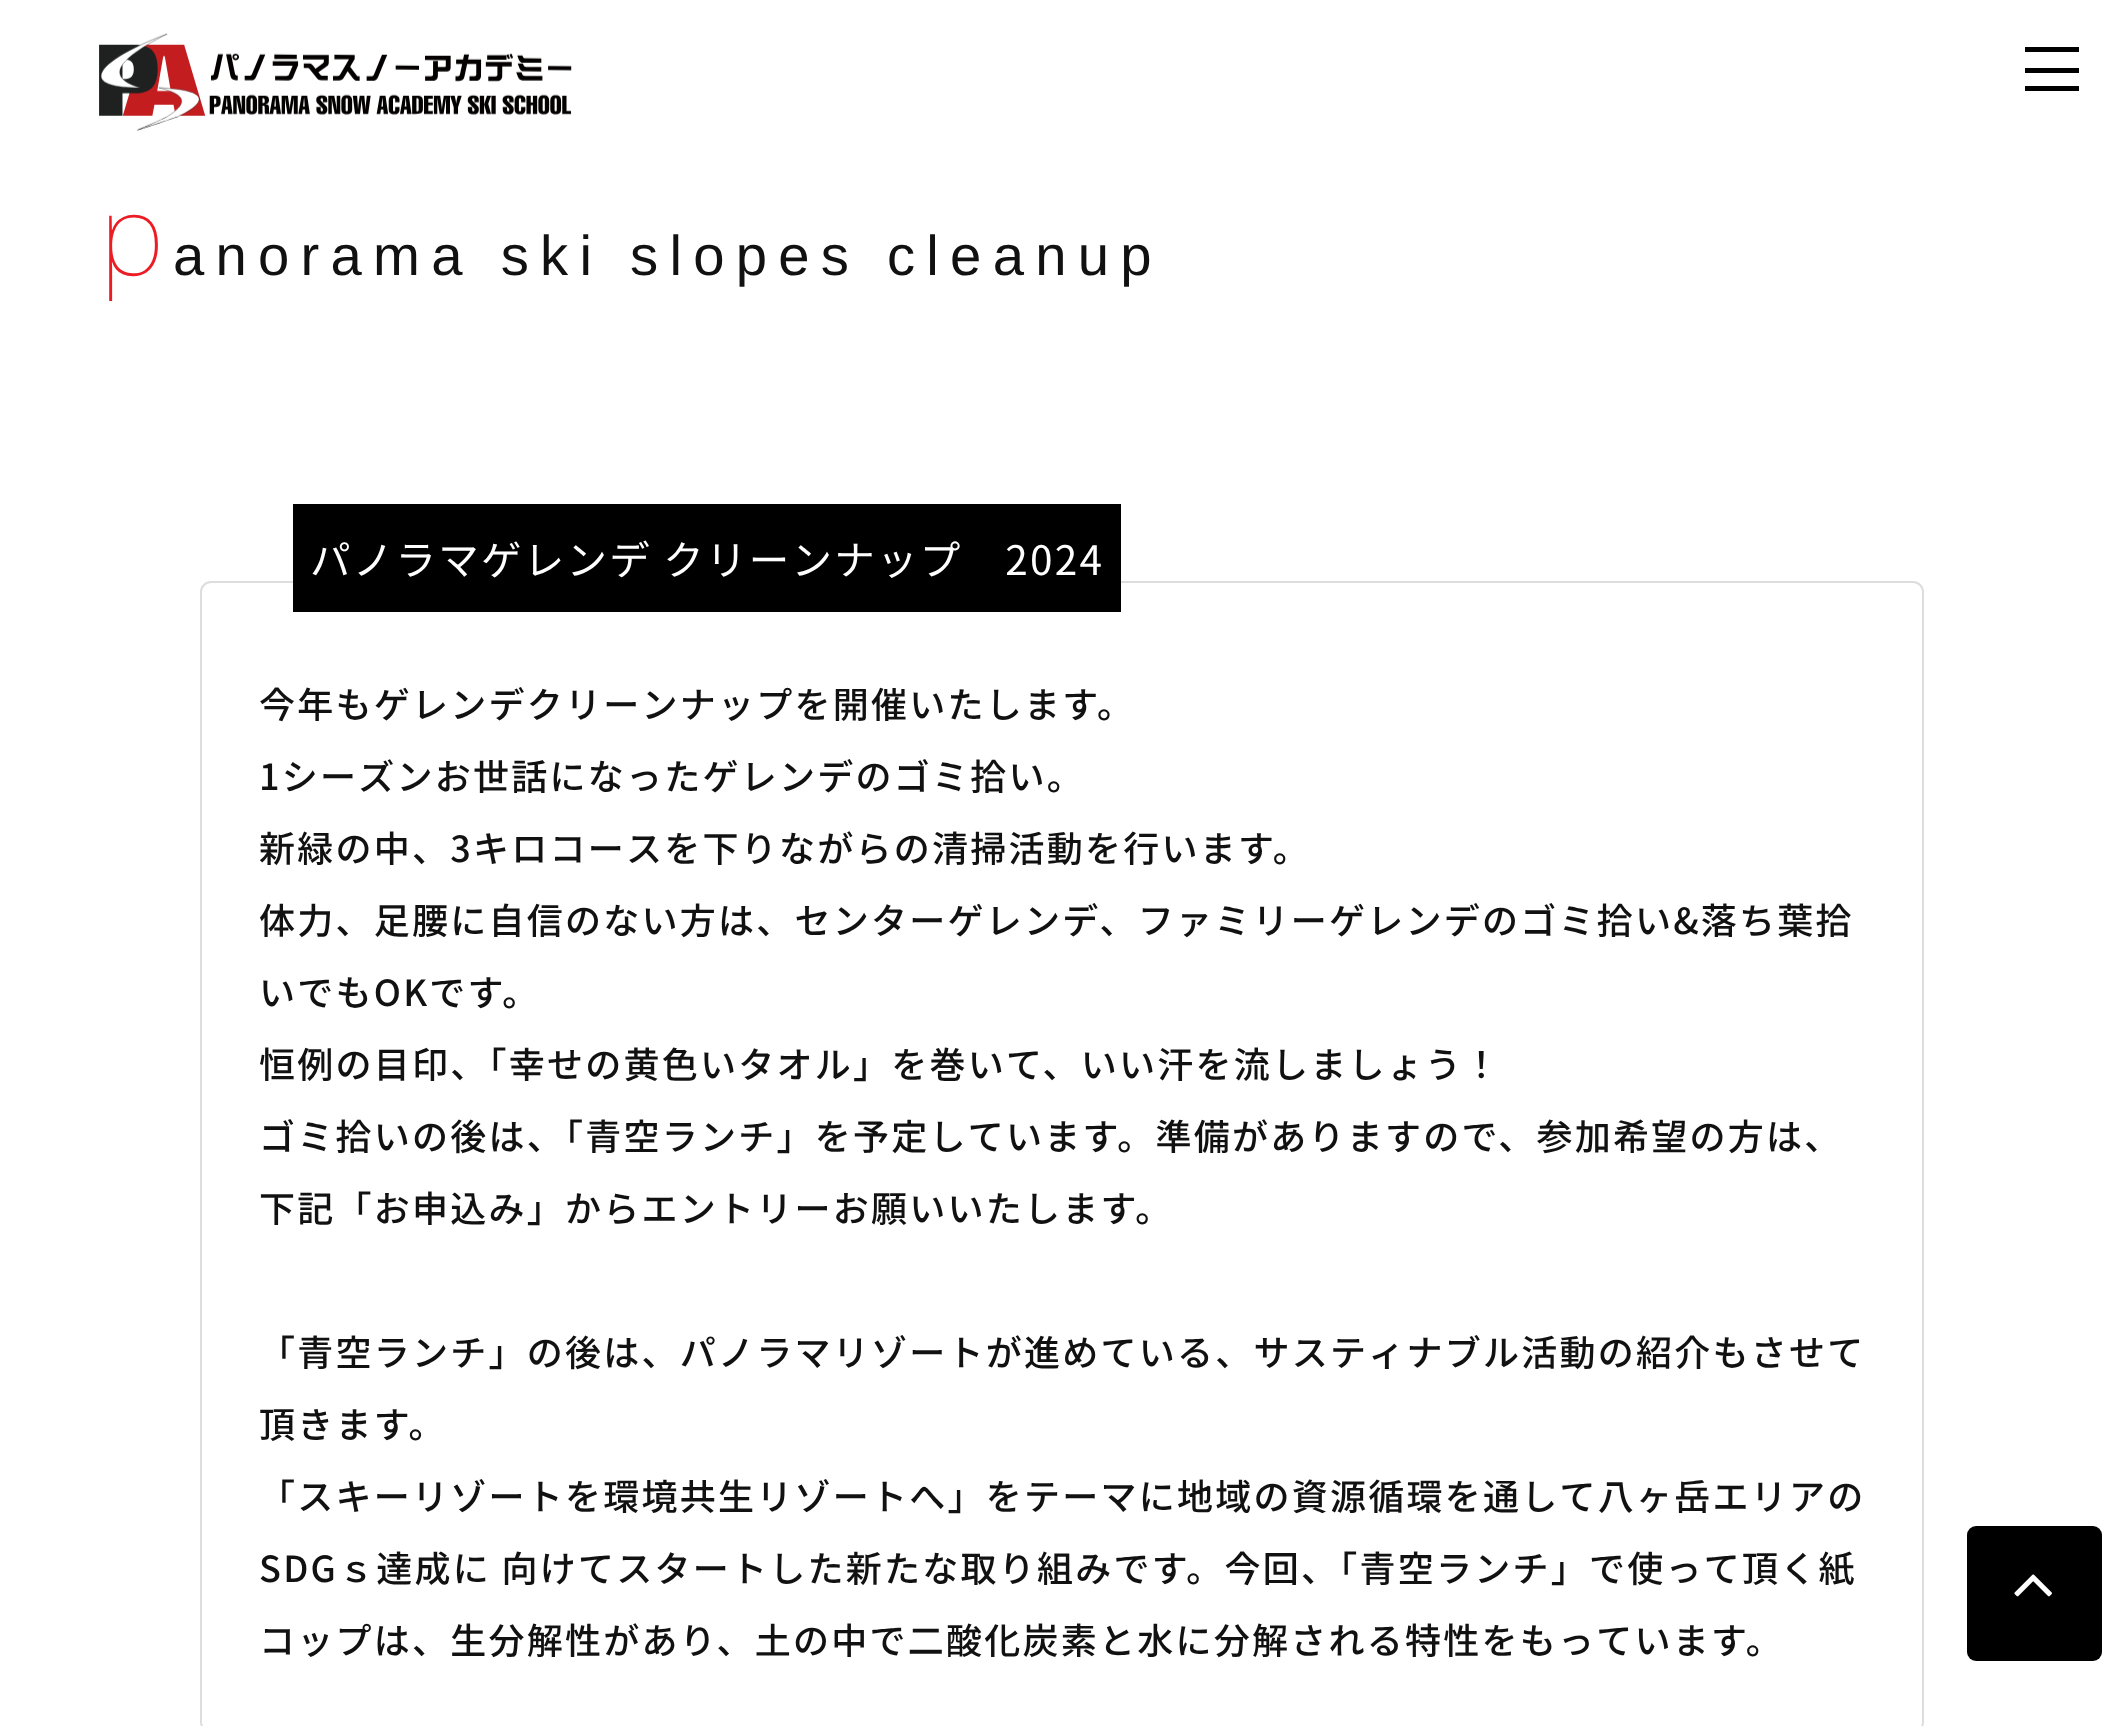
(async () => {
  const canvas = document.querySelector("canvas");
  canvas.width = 2124;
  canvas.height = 1726;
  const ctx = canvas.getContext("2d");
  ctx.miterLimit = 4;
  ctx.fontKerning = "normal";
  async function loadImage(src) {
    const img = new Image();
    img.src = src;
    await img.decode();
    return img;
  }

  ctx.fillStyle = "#ffffff";
  ctx.fillRect(0, 0, 2124, 1726);
  ctx.drawImage(await loadImage("img/1.png"), 99, 33, 473, 98);
  for (const [x, y, w, h, color] of [
    [2025, 47, 54, 5, "#000000"],
    [2025, 68, 54, 5, "#000000"],
    [2025, 86, 54, 5, "#000000"],
  ]) {
    ctx.fillStyle = color;
    ctx.fillRect(x, y, w, h);
  }
  ctx.beginPath();
  ctx.roundRect(201, 582, 1722, 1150, 10);
  ctx.strokeStyle = "#dddddd";
  ctx.lineWidth = 2;
  ctx.stroke();
  ctx.fillRect(293, 504, 828, 108);
  ctx.beginPath();
  ctx.roundRect(1967, 1526, 135, 135, 9);
  ctx.fill();
  ctx.drawImage(await loadImage("img/2.png"), 2014, 1574, 38, 23);
  ctx.letterSpacing = "11.25px";
  ctx.font = "100 112px Noto Sans";
  ctx.fillStyle = "#ec1c24";
  ctx.fillText("p", 99, 275);
  ctx.font = "56.25px Liberation Sans";
  ctx.fillStyle = "#111111";
  ctx.fillText("anorama ski slopes cleanup", 173, 275);
  ctx.letterSpacing = "2.25px";
  ctx.font = "40.5px Noto Sans JP";
  ctx.fillStyle = "#ffffff";
  ctx.fillText("パノラマゲレンデ クリーンナップ　2024", 310, 575);
  ctx.font = "500 36px Noto Sans JP";
  ctx.fillStyle = "#111111";
  for (const [text, x, y] of [
    ["今年もゲレンデクリーンナップを開催いたします。", 259, 718],
    ["1シーズンお世話になったゲレンデのゴミ拾い。", 259, 790],
    ["新緑の中、3キロコースを下りながらの清掃活動を行います。", 259, 862],
    ["体力、足腰に自信のない方は、センターゲレンデ、ファミリーゲレンデのゴミ拾い&落ち葉拾", 259, 934],
    ["いでもOKです。", 259, 1006],
    ["恒例の目印、「幸せの黄色いタオル」を巻いて、いい汗を流しましょう！", 259, 1078],
    ["ゴミ拾いの後は、「青空ランチ」を予定しています。準備がありますので、参加希望の方は、", 259, 1150],
    ["下記「お申込み」からエントリーお願いいたします。", 259, 1222],
    ["「青空ランチ」の後は、パノラマリゾートが進めている、サスティナブル活動の紹介もさせて", 259, 1366],
    ["頂きます。", 259, 1438],
    ["「スキーリゾートを環境共生リゾートへ」をテーマに地域の資源循環を通して八ヶ岳エリアの", 259, 1510],
    ["SDGｓ達成に 向けてスタートした新たな取り組みです。今回、「青空ランチ」で使って頂く紙", 259, 1582],
    ["コップは、生分解性があり、土の中で二酸化炭素と水に分解される特性をもっています。", 259, 1654],
  ]) {
    ctx.fillText(text, x, y);
  }
})();
